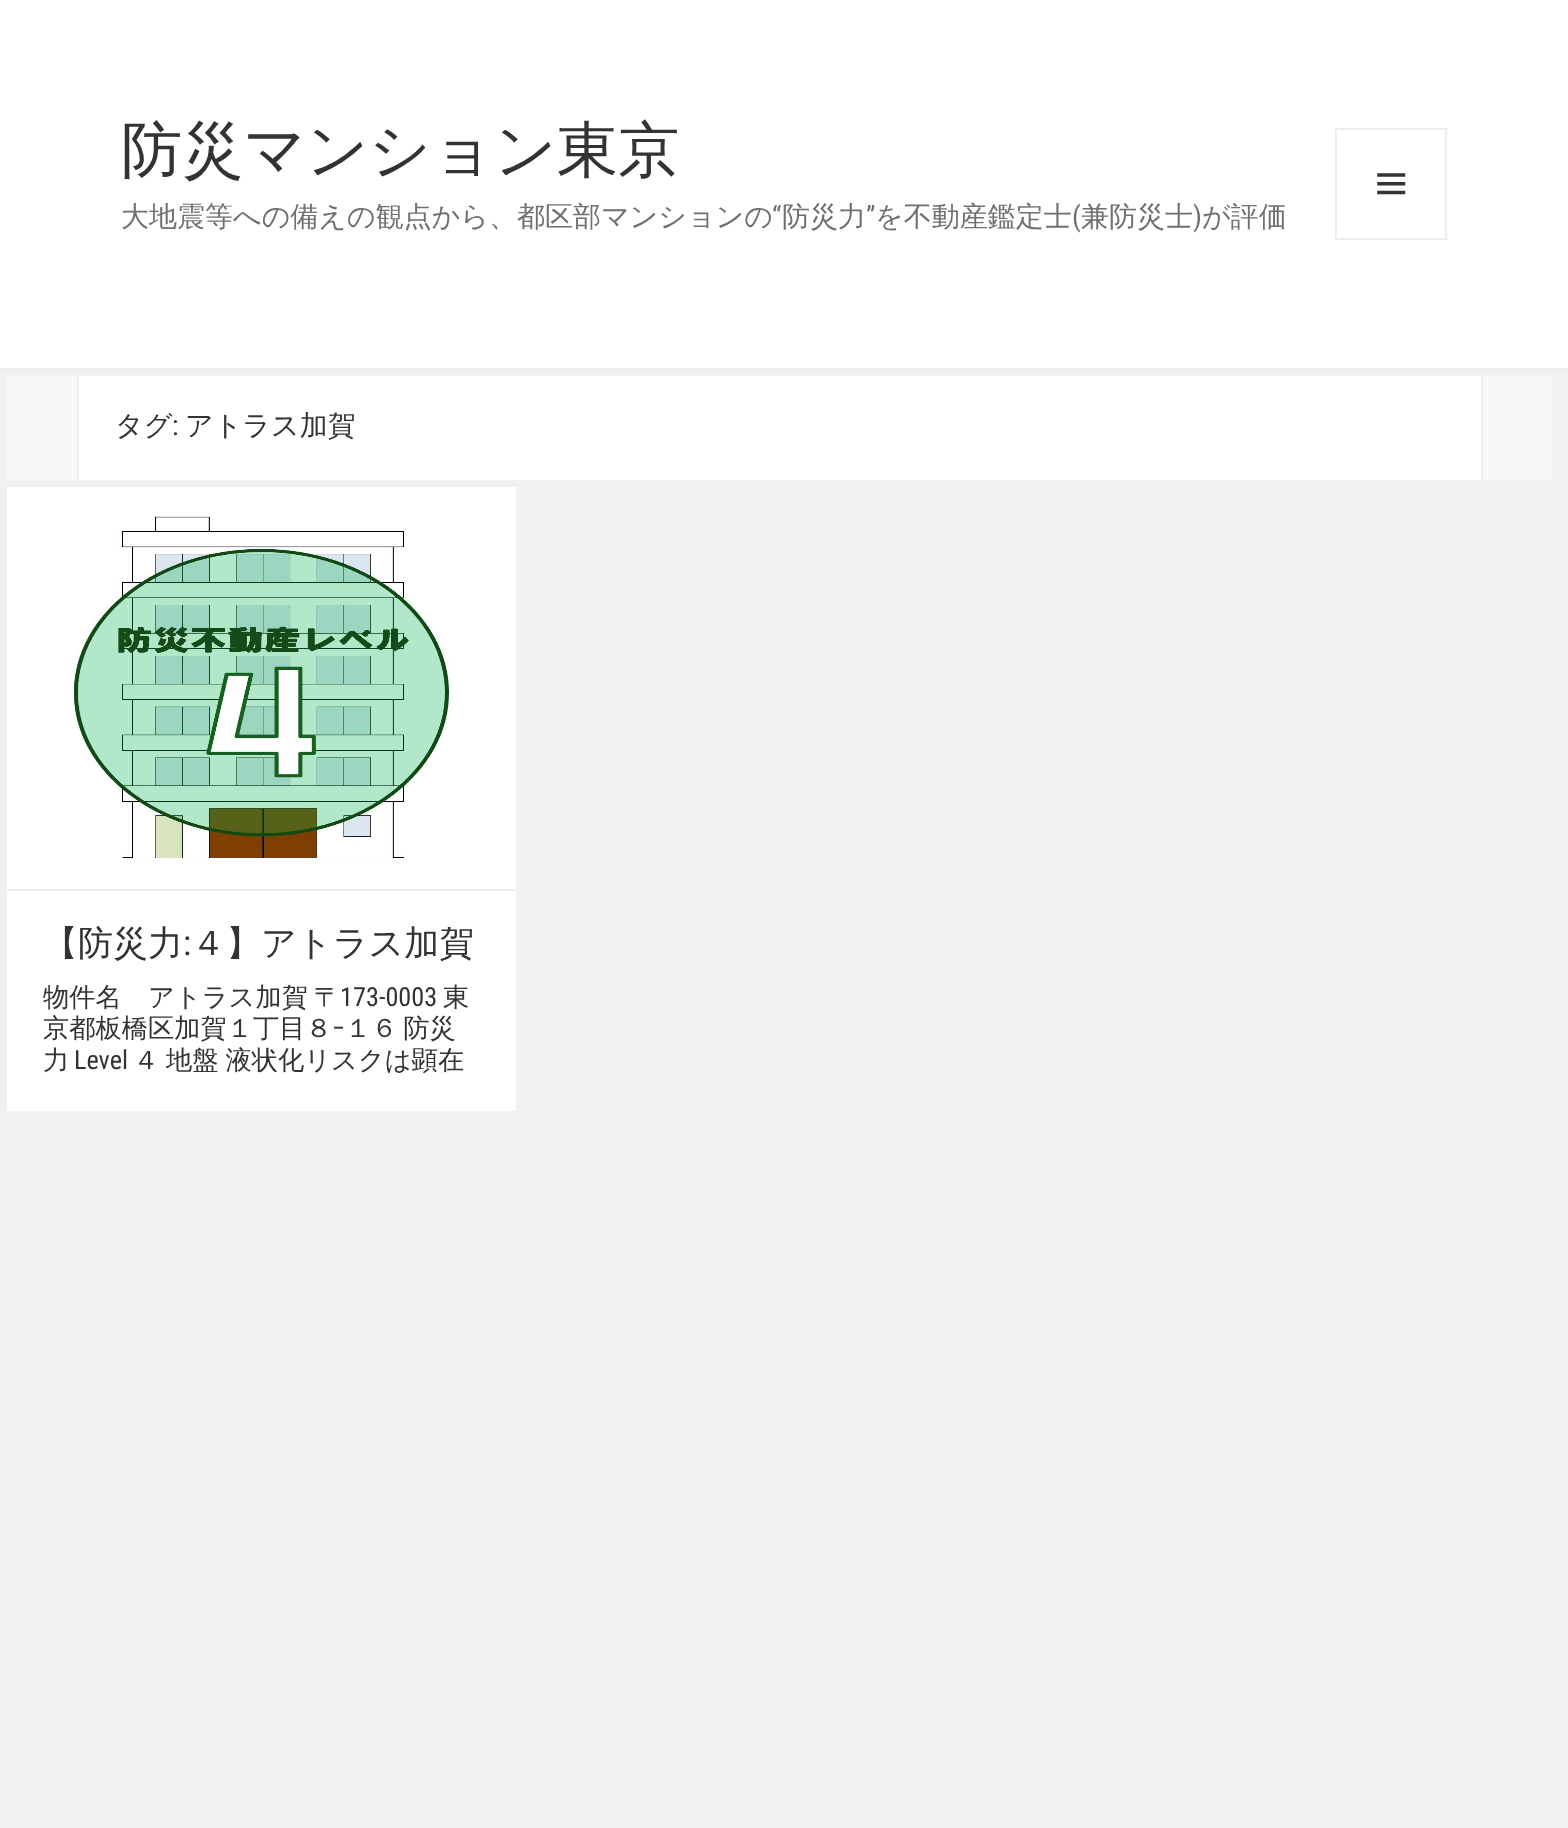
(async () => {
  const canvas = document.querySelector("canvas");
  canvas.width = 1568;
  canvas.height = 1828;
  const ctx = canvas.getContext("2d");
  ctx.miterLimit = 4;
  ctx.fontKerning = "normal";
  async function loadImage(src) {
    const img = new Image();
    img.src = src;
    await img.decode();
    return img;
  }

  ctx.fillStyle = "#f1f1f1";
  ctx.fillRect(0, 0, 1568, 1828);
  ctx.fillStyle = "#ffffff";
  ctx.fillRect(0, 0, 1568, 368);
  ctx.fillStyle = "#ededed";
  ctx.fillRect(0, 368, 1568, 2);
  ctx.strokeStyle = "#ededed";
  ctx.lineWidth = 2;
  ctx.strokeRect(1336, 129, 110, 110);
  ctx.drawImage(await loadImage("img/1.png"), 1377, 173, 29, 22);
  for (const [x, y, w, h, color] of [
    [7, 376, 1545, 104, "#f7f7f7"],
    [79, 376, 1402, 104, "#ffffff"],
    [1481, 376, 2, 104, "#ededed"],
    [77, 376, 2, 104, "#ededed"],
    [7, 487, 509, 624, "#ffffff"],
    [7, 889, 509, 2, "#ededed"],
  ]) {
    ctx.fillStyle = color;
    ctx.fillRect(x, y, w, h);
  }
  ctx.drawImage(await loadImage("img/2.png"), 71, 516, 382, 345);
  ctx.font = "500 61.25px WenQuanYi Zen Hei";
  ctx.fillStyle = "#333333";
  ctx.fillText("防災マンション東京", 121, 171);
  ctx.font = "500 28px WenQuanYi Zen Hei";
  ctx.fillStyle = "#707070";
  ctx.fillText("大地震等への備えの観点から、都区部マンションの", 121, 226);
  ctx.font = "28px Roboto Condensed";
  ctx.fillText("“", 772, 226);
  ctx.font = "500 28px WenQuanYi Zen Hei";
  ctx.fillText("防災力", 782, 226);
  ctx.font = "28px Roboto Condensed";
  ctx.fillText("”", 866, 226);
  ctx.font = "500 28px WenQuanYi Zen Hei";
  ctx.fillText("を不動産鑑定士", 875, 226);
  ctx.font = "28px Roboto Condensed";
  ctx.fillText("(", 1072, 226);
  ctx.font = "500 28px WenQuanYi Zen Hei";
  ctx.fillText("兼防災士", 1081, 226);
  ctx.font = "28px Roboto Condensed";
  ctx.fillText(")", 1193, 226);
  ctx.font = "500 28px WenQuanYi Zen Hei";
  ctx.fillText("が評価", 1202, 226);
  ctx.fillStyle = "#333333";
  ctx.fillText("タグ", 115, 435);
  ctx.font = "28px Roboto Condensed";
  ctx.fillText(":", 172, 435);
  ctx.font = "500 28px WenQuanYi Zen Hei";
  ctx.fillText("アトラス加賀", 185, 435);
  ctx.font = "500 35px WenQuanYi Zen Hei";
  ctx.fillText("【防災力", 43, 955);
  ctx.font = "35px Roboto Condensed";
  ctx.fillText(":", 183, 955);
  ctx.font = "500 35px WenQuanYi Zen Hei";
  ctx.fillText("４】アトラス加賀", 191, 955);
  ctx.font = "500 26.25px WenQuanYi Zen Hei";
  ctx.fillText("物件名　アトラス加賀", 43, 1006);
  ctx.fillText("〒", 314, 1006);
  ctx.font = "26.25px Roboto Condensed";
  ctx.fillText("173-0003", 340, 1006);
  ctx.font = "500 26.25px WenQuanYi Zen Hei";
  ctx.fillText("東", 443, 1006);
  ctx.fillText("京都板橋区加賀１丁目８", 43, 1037);
  ctx.font = "26.25px Roboto Condensed";
  ctx.fillText("−", 332, 1037);
  ctx.wordSpacing = "-2px";
  ctx.font = "500 26.25px WenQuanYi Zen Hei";
  ctx.fillText("１６ 防災", 345, 1037);
  ctx.wordSpacing = "0px";
  ctx.fillText("力", 43, 1069);
  ctx.font = "26.25px Roboto Condensed";
  ctx.fillText("Level", 74, 1069);
  ctx.wordSpacing = "-1px";
  ctx.font = "500 26.25px WenQuanYi Zen Hei";
  ctx.fillText("４ 地盤 液状化リスクは顕在", 133, 1069);
})();
